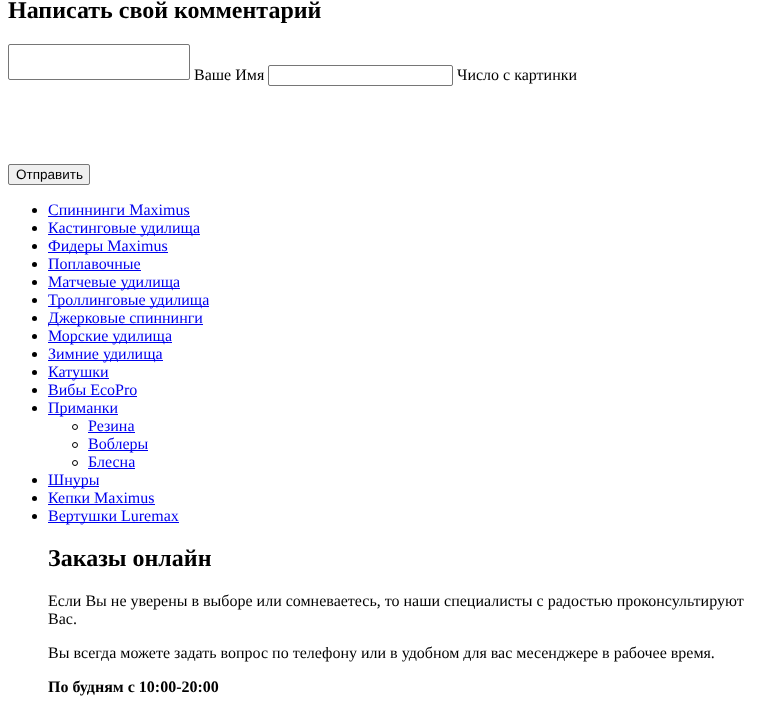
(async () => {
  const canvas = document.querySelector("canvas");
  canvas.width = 759;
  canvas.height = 713;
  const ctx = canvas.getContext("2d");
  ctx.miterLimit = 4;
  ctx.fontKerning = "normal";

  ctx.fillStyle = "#ffffff";
  ctx.fillRect(0, 0, 759, 713);
  ctx.beginPath();
  ctx.roundRect(8.5, 44.5, 181, 35, 1.5);
  ctx.strokeStyle = "#767676";
  ctx.stroke();
  ctx.beginPath();
  ctx.roundRect(268.5, 65.5, 184, 20, 1.5);
  ctx.stroke();
  ctx.fillStyle = "#efefef";
  ctx.beginPath();
  ctx.roundRect(8.5, 164.5, 81, 20, 1.5);
  ctx.fill();
  ctx.stroke();
  ctx.fillStyle = "#000000";
  ctx.beginPath();
  ctx.arc(34.5, 210.5, 2.5, 0, Math.PI * 2);
  ctx.fill();
  ctx.fillStyle = "#0000ee";
  ctx.fillRect(48, 216, 142, 1);
  ctx.fillStyle = "#000000";
  ctx.beginPath();
  ctx.arc(34.5, 228.5, 2.5, 0, Math.PI * 2);
  ctx.fill();
  ctx.fillStyle = "#0000ee";
  ctx.fillRect(48, 234, 152, 1);
  ctx.fillStyle = "#000000";
  ctx.beginPath();
  ctx.arc(34.5, 246.5, 2.5, 0, Math.PI * 2);
  ctx.fill();
  ctx.fillStyle = "#0000ee";
  ctx.fillRect(48, 252, 120, 1);
  ctx.fillStyle = "#000000";
  ctx.beginPath();
  ctx.arc(34.5, 264.5, 2.5, 0, Math.PI * 2);
  ctx.fill();
  ctx.fillStyle = "#0000ee";
  ctx.fillRect(48, 270, 93, 1);
  ctx.fillStyle = "#000000";
  ctx.beginPath();
  ctx.arc(34.5, 282.5, 2.5, 0, Math.PI * 2);
  ctx.fill();
  ctx.fillStyle = "#0000ee";
  ctx.fillRect(48, 288, 132, 1);
  ctx.fillStyle = "#000000";
  ctx.beginPath();
  ctx.arc(34.5, 300.5, 2.5, 0, Math.PI * 2);
  ctx.fill();
  ctx.fillStyle = "#0000ee";
  ctx.fillRect(48, 306, 161, 1);
  ctx.fillStyle = "#000000";
  ctx.beginPath();
  ctx.arc(34.5, 318.5, 2.5, 0, Math.PI * 2);
  ctx.fill();
  ctx.fillStyle = "#0000ee";
  ctx.fillRect(48, 324, 155, 1);
  ctx.fillStyle = "#000000";
  ctx.beginPath();
  ctx.arc(34.5, 336.5, 2.5, 0, Math.PI * 2);
  ctx.fill();
  ctx.fillStyle = "#0000ee";
  ctx.fillRect(48, 342, 124, 1);
  ctx.fillStyle = "#000000";
  ctx.beginPath();
  ctx.arc(34.5, 354.5, 2.5, 0, Math.PI * 2);
  ctx.fill();
  ctx.fillStyle = "#0000ee";
  ctx.fillRect(48, 360, 115, 1);
  ctx.fillStyle = "#000000";
  ctx.beginPath();
  ctx.arc(34.5, 372.5, 2.5, 0, Math.PI * 2);
  ctx.fill();
  ctx.fillStyle = "#0000ee";
  ctx.fillRect(48, 378, 61, 1);
  ctx.fillStyle = "#000000";
  ctx.beginPath();
  ctx.arc(34.5, 390.5, 2.5, 0, Math.PI * 2);
  ctx.fill();
  ctx.fillStyle = "#0000ee";
  ctx.fillRect(48, 396, 89, 1);
  ctx.fillStyle = "#000000";
  ctx.beginPath();
  ctx.arc(34.5, 408.5, 2.5, 0, Math.PI * 2);
  ctx.fill();
  ctx.fillStyle = "#0000ee";
  ctx.fillRect(48, 414, 70, 1);
  ctx.beginPath();
  ctx.arc(75, 427, 2.5, 0, Math.PI * 2);
  ctx.strokeStyle = "#000000";
  ctx.stroke();
  ctx.fillRect(88, 432, 47, 1);
  ctx.beginPath();
  ctx.arc(75, 445, 2.5, 0, Math.PI * 2);
  ctx.stroke();
  ctx.fillRect(88, 450, 60, 1);
  ctx.beginPath();
  ctx.arc(75, 463, 2.5, 0, Math.PI * 2);
  ctx.stroke();
  ctx.fillRect(88, 468, 47, 1);
  ctx.fillStyle = "#000000";
  ctx.beginPath();
  ctx.arc(34.5, 480.5, 2.5, 0, Math.PI * 2);
  ctx.fill();
  ctx.fillStyle = "#0000ee";
  ctx.fillRect(48, 486, 51, 1);
  ctx.fillStyle = "#000000";
  ctx.beginPath();
  ctx.arc(34.5, 498.5, 2.5, 0, Math.PI * 2);
  ctx.fill();
  ctx.fillStyle = "#0000ee";
  ctx.fillRect(48, 504, 107, 1);
  ctx.fillStyle = "#000000";
  ctx.beginPath();
  ctx.arc(34.5, 516.5, 2.5, 0, Math.PI * 2);
  ctx.fill();
  ctx.fillStyle = "#0000ee";
  ctx.fillRect(48, 522, 131, 1);
  ctx.font = "bold 24px Liberation Serif";
  ctx.fillStyle = "#000000";
  ctx.fillText("Написать свой комментарий", 8, 18);
  ctx.font = "16px Liberation Serif";
  ctx.fillText("Ваше Имя", 194, 80);
  ctx.fillText("Число с картинки", 457, 80);
  ctx.font = "13.5px Liberation Sans";
  ctx.fillText("Отправить", 16, 179);
  ctx.font = "16px Liberation Serif";
  ctx.fillStyle = "#0000ee";
  for (const [text, x, y] of [
    ["Спиннинги Maximus", 48, 215],
    ["Кастинговые удилища", 48, 233],
    ["Фидеры Maximus", 48, 251],
    ["Поплавочные", 48, 269],
    ["Матчевые удилища", 48, 287],
    ["Троллинговые удилища", 48, 305],
    ["Джерковые спиннинги", 48, 323],
    ["Морские удилища", 48, 341],
    ["Зимние удилища", 48, 359],
    ["Катушки", 48, 377],
    ["Вибы EcoPro", 48, 395],
    ["Приманки", 48, 413],
    ["Резина", 88, 431],
    ["Воблеры", 88, 449],
    ["Блесна", 88, 467],
    ["Шнуры", 48, 485],
    ["Кепки Maximus", 48, 503],
    ["Вертушки Luremax", 48, 521],
  ]) {
    ctx.fillText(text, x, y);
  }
  ctx.font = "bold 24px Liberation Serif";
  ctx.fillStyle = "#000000";
  ctx.fillText("Заказы онлайн", 48, 566);
  ctx.font = "16px Liberation Serif";
  for (const [text, x, y] of [
    ["Если Вы не уверены в выборе или сомневаетесь, то наши специалисты с радостью проконсультируют", 48, 606],
    ["Вас.", 48, 624],
    ["Вы всегда можете задать вопрос по телефону или в удобном для вас месенджере в рабочее время.", 48, 658],
  ]) {
    ctx.fillText(text, x, y);
  }
  ctx.font = "bold 16px Liberation Serif";
  ctx.fillText("По будням с 10:00-20:00", 48, 692);
})();
